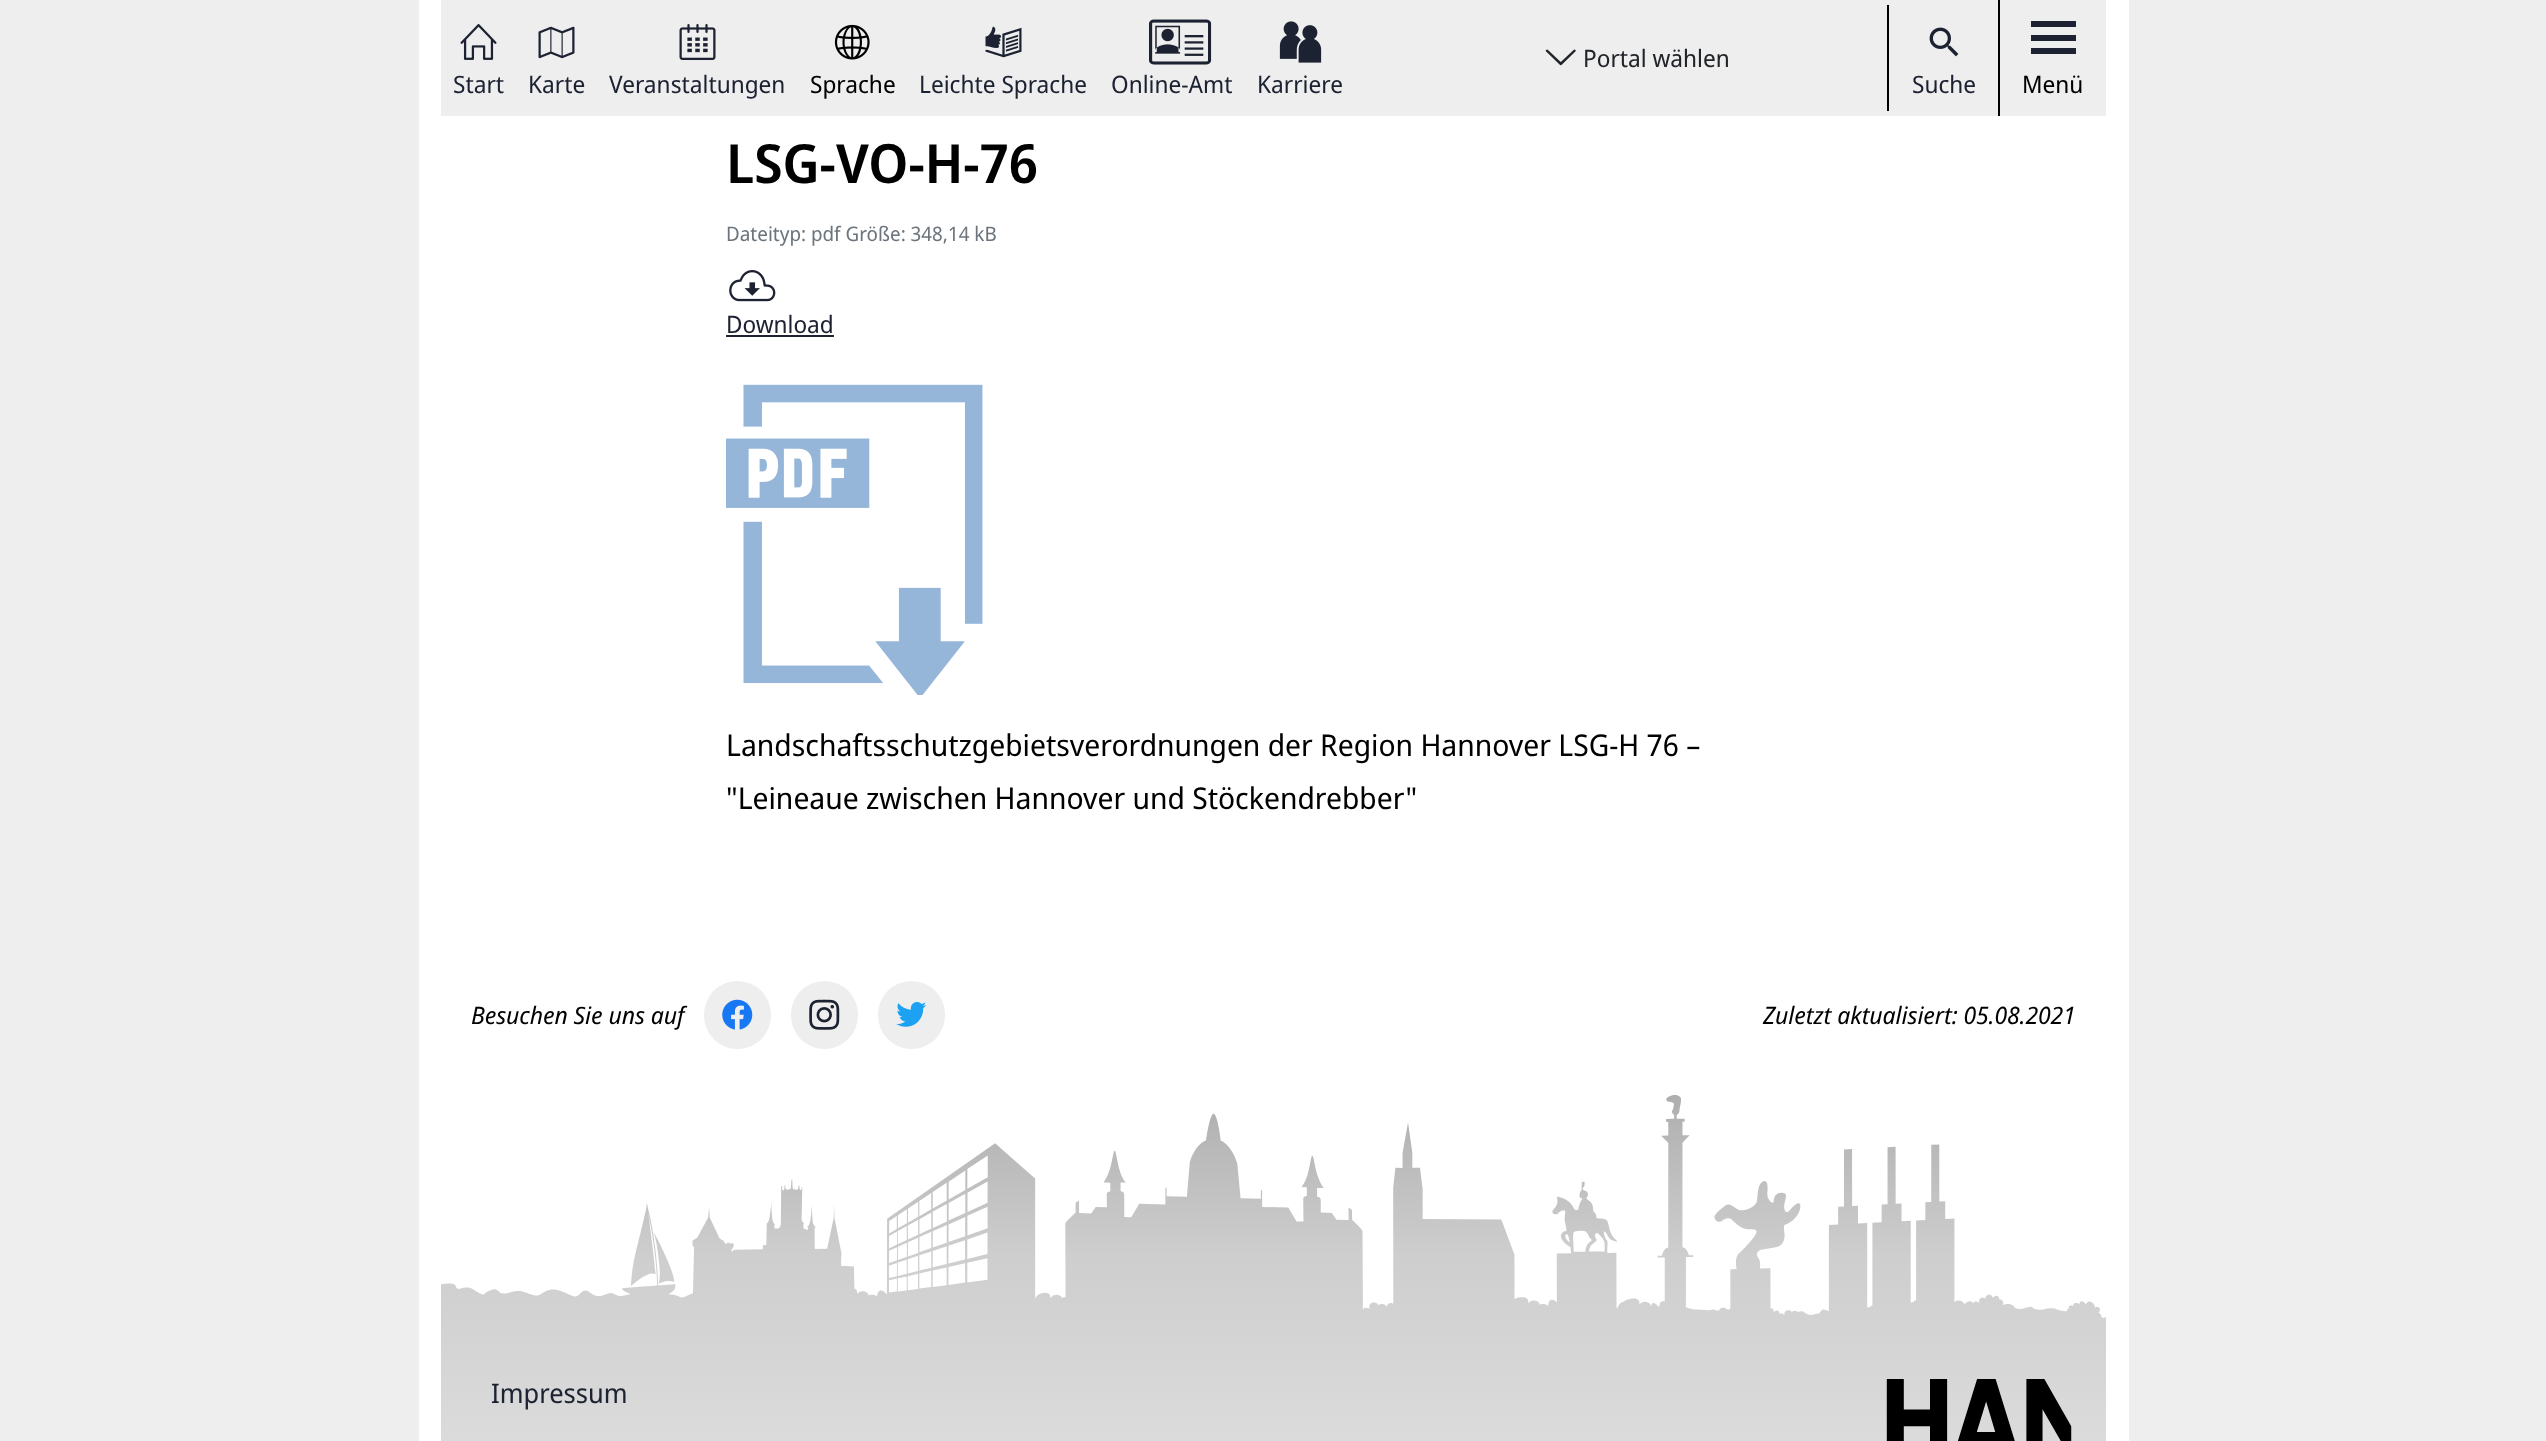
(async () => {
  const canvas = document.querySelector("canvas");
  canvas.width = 2546;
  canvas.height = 1441;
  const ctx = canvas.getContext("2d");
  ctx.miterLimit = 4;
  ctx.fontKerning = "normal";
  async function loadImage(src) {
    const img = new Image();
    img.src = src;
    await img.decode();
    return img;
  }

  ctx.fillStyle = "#eeeeee";
  ctx.fillRect(0, 0, 2546, 1441);
  ctx.fillStyle = "#ffffff";
  ctx.fillRect(419, 0, 1710, 1441);
  ctx.fillStyle = "#eeeeee";
  ctx.fillRect(441, 0, 1665, 116);
  ctx.drawImage(await loadImage("img/1.png"), 1545, 49, 31, 17);
  ctx.drawImage(await loadImage("img/2.png"), 460, 24, 37, 36);
  ctx.drawImage(await loadImage("img/3.png"), 538, 26, 37, 33);
  ctx.drawImage(await loadImage("img/4.png"), 679, 24, 37, 36);
  ctx.drawImage(await loadImage("img/5.png"), 834, 24, 36, 36);
  ctx.drawImage(await loadImage("img/6.png"), 985, 26, 37, 32);
  ctx.drawImage(await loadImage("img/7.png"), 1149, 19, 63, 46);
  ctx.drawImage(await loadImage("img/8.png"), 1279, 21, 43, 42);
  ctx.fillStyle = "#000000";
  ctx.fillRect(1887, 5, 2, 106);
  ctx.drawImage(await loadImage("img/9.png"), 1929, 27, 30, 30);
  for (const [x, y, w, h, color] of [
    [1998, 0, 2, 116, "#000000"],
    [2031, 21, 45, 6, "#1c2231"],
    [2031, 35, 45, 6, "#1c2231"],
    [2031, 48, 45, 6, "#1c2231"],
  ]) {
    ctx.fillStyle = color;
    ctx.fillRect(x, y, w, h);
  }
  ctx.drawImage(await loadImage("img/10.png"), 729, 270, 47, 32);
  ctx.fillRect(726, 335, 108, 2);
  ctx.drawImage(await loadImage("img/11.png"), 726, 384, 257, 311);
  ctx.fillStyle = "#eeeeee";
  ctx.beginPath();
  ctx.roundRect(704, 981, 67, 68, 33.5);
  ctx.fill();
  ctx.drawImage(await loadImage("img/12.png"), 722, 999, 31, 31);
  ctx.beginPath();
  ctx.roundRect(791, 981, 67, 68, 33.5);
  ctx.fill();
  ctx.drawImage(await loadImage("img/13.png"), 809, 999, 31, 31);
  ctx.beginPath();
  ctx.roundRect(878, 981, 67, 68, 33.5);
  ctx.fill();
  ctx.drawImage(await loadImage("img/14.png"), 896, 1002, 31, 25);
  ctx.drawImage(await loadImage("img/15.png"), 441, 1094, 1665, 347);
  ctx.drawImage(await loadImage("img/16.png"), 1886, 1379, 186, 62);
  ctx.font = "24px Noto Sans Display";
  ctx.fillStyle = "#212529";
  ctx.fillText("Portal wählen", 1583, 67);
  ctx.fillStyle = "#1c2231";
  for (const [text, x, y] of [
    ["Start", 453, 93],
    ["Karte", 528, 93],
    ["Veranstaltungen", 609, 93],
  ]) {
    ctx.fillText(text, x, y);
  }
  ctx.fillStyle = "#000000";
  ctx.fillText("Sprache", 810, 93);
  ctx.fillStyle = "#1c2231";
  for (const [text, x, y] of [
    ["Leichte Sprache", 919, 93],
    ["Online-Amt", 1111, 93],
    ["Karriere", 1257, 93],
    ["Suche", 1912, 93],
  ]) {
    ctx.fillText(text, x, y);
  }
  ctx.fillStyle = "#000000";
  ctx.fillText("Menü", 2022, 93);
  ctx.font = "600 54px Noto Sans Display";
  ctx.fillText("LSG-VO-H-76", 726, 183);
  ctx.font = "20px Noto Sans Display";
  ctx.fillStyle = "#6c757d";
  ctx.fillText("Dateityp: pdf Größe: 348,14 kB", 726, 241);
  ctx.font = "24px Noto Sans Display";
  ctx.fillStyle = "#1c2231";
  ctx.fillText("Download", 726, 333);
  ctx.font = "30px Noto Sans Display";
  ctx.fillStyle = "#000000";
  ctx.fillText("Landschaftsschutzgebietsverordnungen der Region Hannover LSG-H 76 –", 726, 756);
  ctx.fillText("\"Leineaue zwischen Hannover und Stöckendrebber\"", 726, 809);
  ctx.font = "italic 24px Noto Sans Display";
  ctx.fillText("Besuchen Sie uns auf", 471, 1024);
  ctx.fillText("Zuletzt aktualisiert: 05.08.2021", 1763, 1024);
  ctx.font = "27px Noto Sans Display";
  ctx.fillStyle = "#1c2231";
  ctx.fillText("Impressum", 491, 1403);
})();
